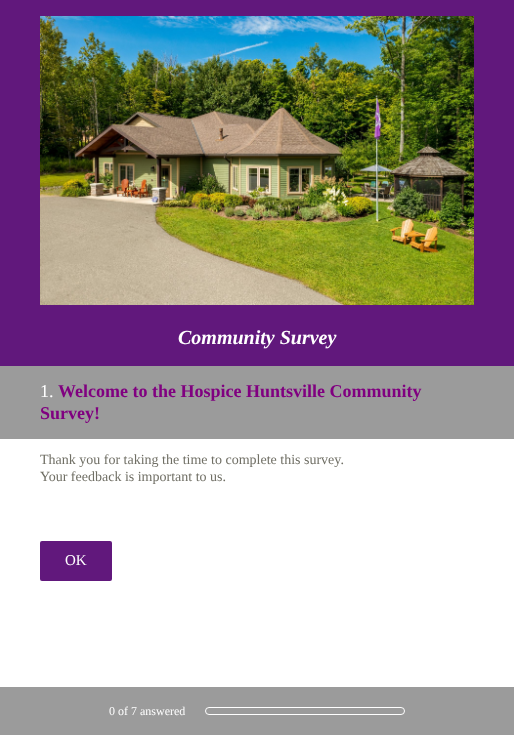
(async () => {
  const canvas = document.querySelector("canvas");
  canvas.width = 514;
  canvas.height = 735;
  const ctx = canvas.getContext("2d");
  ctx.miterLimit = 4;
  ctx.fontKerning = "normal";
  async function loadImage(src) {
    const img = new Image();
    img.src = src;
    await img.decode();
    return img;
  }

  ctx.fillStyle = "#ffffff";
  ctx.fillRect(0, 0, 514, 735);
  ctx.fillStyle = "#61187c";
  ctx.fillRect(0, 0, 514, 366);
  ctx.drawImage(await loadImage("img/1.png"), 40, 16, 434, 289);
  ctx.fillStyle = "#9b9b9b";
  ctx.fillRect(0, 366, 514, 73);
  ctx.fillStyle = "#61187c";
  ctx.beginPath();
  ctx.roundRect(40, 541, 72, 40, 2);
  ctx.fill();
  ctx.fillStyle = "#9b9b9b";
  ctx.fillRect(0, 687, 514, 48);
  ctx.beginPath();
  ctx.roundRect(205.5, 707.5, 199, 7, 3.5);
  ctx.strokeStyle = "#ffffff";
  ctx.stroke();
  ctx.font = "italic bold 20px Liberation Serif";
  ctx.fillStyle = "#ffffff";
  ctx.fillText("Community Survey", 178, 344);
  ctx.font = "18px Liberation Serif";
  ctx.fillText("1.", 40, 397);
  ctx.font = "bold 18px Liberation Serif";
  ctx.fillStyle = "#800080";
  ctx.fillText("Welcome to the Hospice Huntsville Community", 58, 397);
  ctx.fillText("Survey!", 40, 419);
  ctx.font = "14px Liberation Serif";
  ctx.fillStyle = "#706f65";
  ctx.fillText("Thank you for taking the time to complete this survey.", 40, 464);
  ctx.fillText("Your feedback is important to us.", 40, 481);
  ctx.font = "15px Liberation Serif";
  ctx.fillStyle = "#ffffff";
  ctx.fillText("OK", 65, 565);
  ctx.font = "12px Liberation Serif";
  ctx.fillText("0 of 7 answered", 109, 715);
})();
